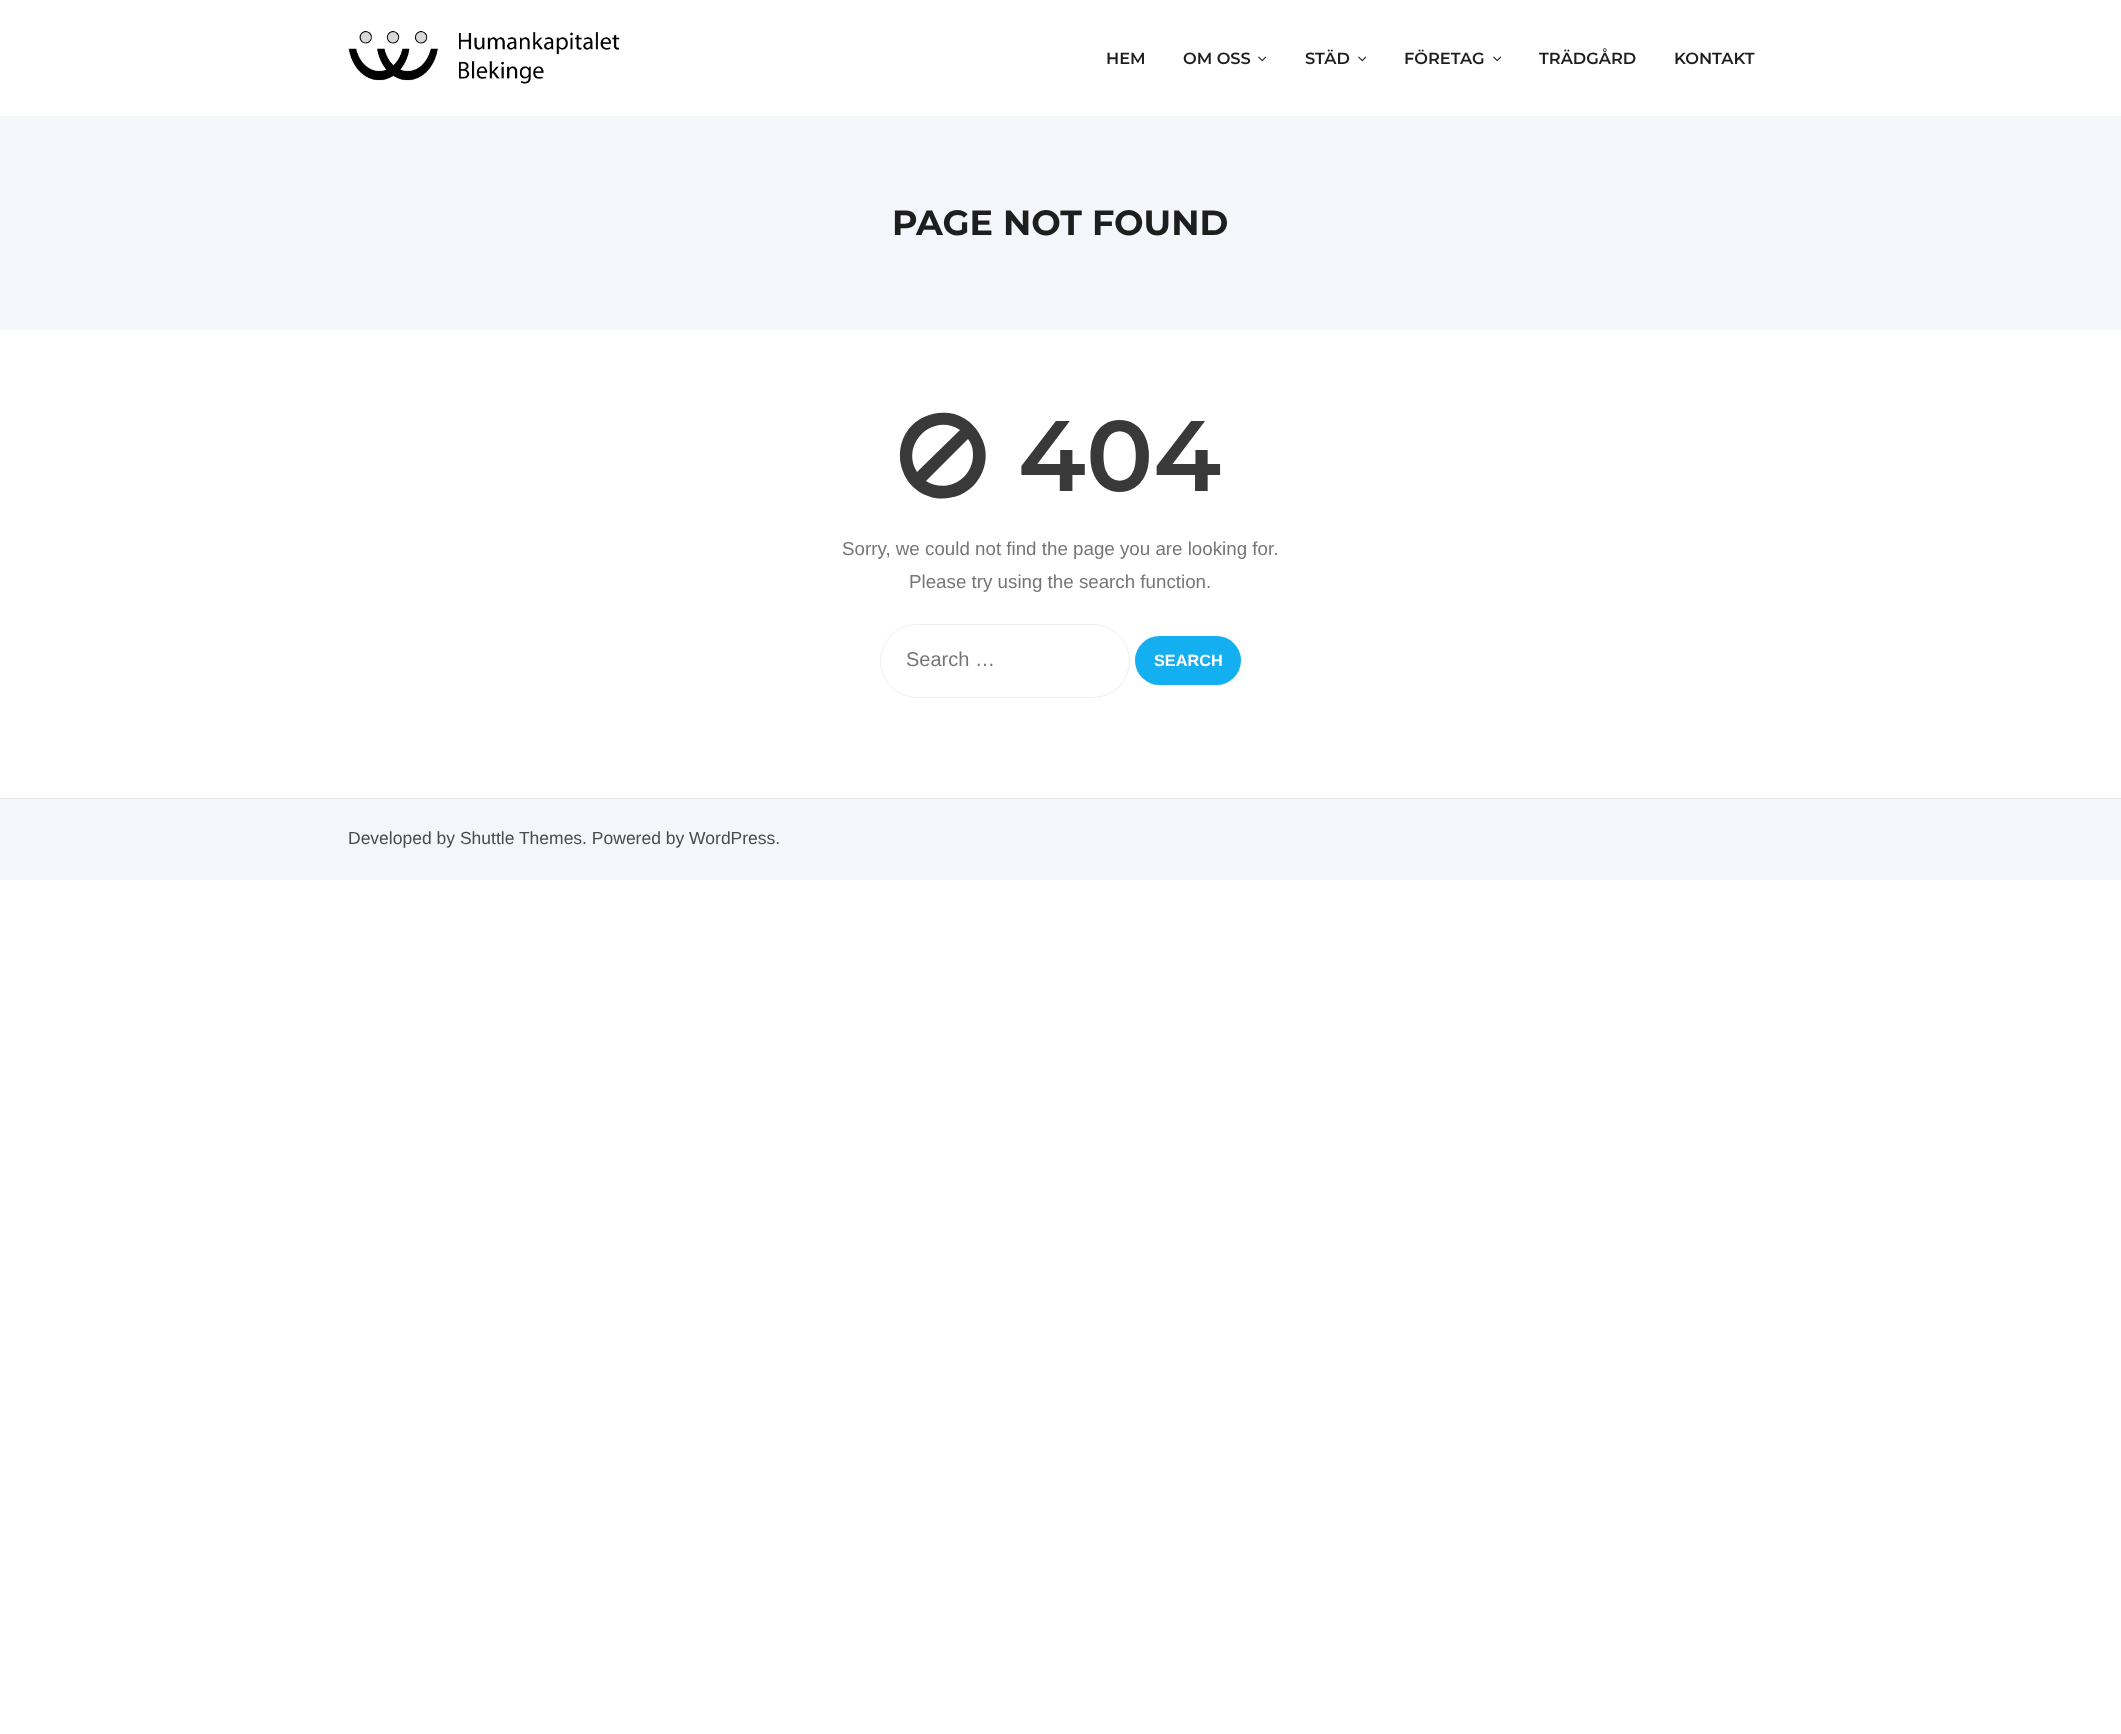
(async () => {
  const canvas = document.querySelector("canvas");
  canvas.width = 2121;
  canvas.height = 1734;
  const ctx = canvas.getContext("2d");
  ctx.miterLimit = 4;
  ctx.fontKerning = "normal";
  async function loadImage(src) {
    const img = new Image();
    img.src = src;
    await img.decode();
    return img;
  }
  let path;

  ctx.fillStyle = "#ffffff";
  ctx.fillRect(0, 0, 2121, 1734);
  ctx.drawImage(await loadImage("img/1.png"), 348, 31, 272, 53);
  ctx.drawImage(await loadImage("img/2.png"), 1258, 56, 9, 6);
  ctx.drawImage(await loadImage("img/2.png"), 1358, 56, 9, 6);
  ctx.drawImage(await loadImage("img/2.png"), 1493, 56, 9, 6);
  ctx.fillStyle = "#f5f6fb";
  ctx.fillRect(0, 116, 2121, 214);
  ctx.fillStyle = "#3a3939";
  path = new Path2D("M973 455C973 449 972 444 968 439L926 481C947 494 973 479 973 455ZM917 472L960 430C932 412 900 445 917 472ZM982 439C992 460 981 486 960 495C950 499 938 500 928 496C893 483 890 433 924 417C932 413 941 412 949 413C964 415 976 425 982 439Z");
  ctx.fill(path);
  ctx.beginPath();
  ctx.roundRect(880.5, 624.5, 249, 73, 36.5);
  ctx.strokeStyle = "#eeeeee";
  ctx.stroke();
  ctx.fillStyle = "#13aff0";
  ctx.beginPath();
  ctx.roundRect(1135, 636, 106, 49, 24.5);
  ctx.fill();
  ctx.fillStyle = "#f5f6fb";
  ctx.fillRect(0, 799, 2121, 81);
  ctx.fillStyle = "#e4e5e9";
  ctx.fillRect(0, 798, 2121, 1);
  ctx.font = "600 16.25px Montserrat";
  ctx.fillStyle = "#1e1e1e";
  for (const [text, x, y] of [
    ["HEM", 1106, 64],
    ["OM OSS", 1183, 64],
    ["STÄD", 1305, 64],
    ["FÖRETAG", 1404, 64],
    ["TRÄDGÅRD", 1539, 64],
    ["KONTAKT", 1674, 64],
  ]) {
    ctx.fillText(text, x, y);
  }
  ctx.font = "bold 35px Montserrat";
  ctx.fillText("PAGE NOT FOUND", 892, 235);
  ctx.font = "600 100px Montserrat";
  ctx.fillStyle = "#3a3939";
  ctx.fillText("404", 1018, 491);
  ctx.font = "18.75px Liberation Sans";
  ctx.fillStyle = "#767676";
  ctx.fillText("Sorry, we could not find the page you are looking for.", 842, 555);
  ctx.fillText("Please try using the search function.", 909, 588);
  ctx.font = "20px Liberation Sans";
  ctx.fillText("Search …", 906, 666);
  ctx.font = "bold 16.25px Liberation Sans";
  ctx.fillStyle = "#ffffff";
  ctx.fillText("SEARCH", 1154, 666);
  ctx.font = "17.5px Liberation Sans";
  ctx.fillStyle = "#4a4a4a";
  ctx.fillText("Developed by Shuttle Themes. Powered by WordPress.", 348, 844);
})();
